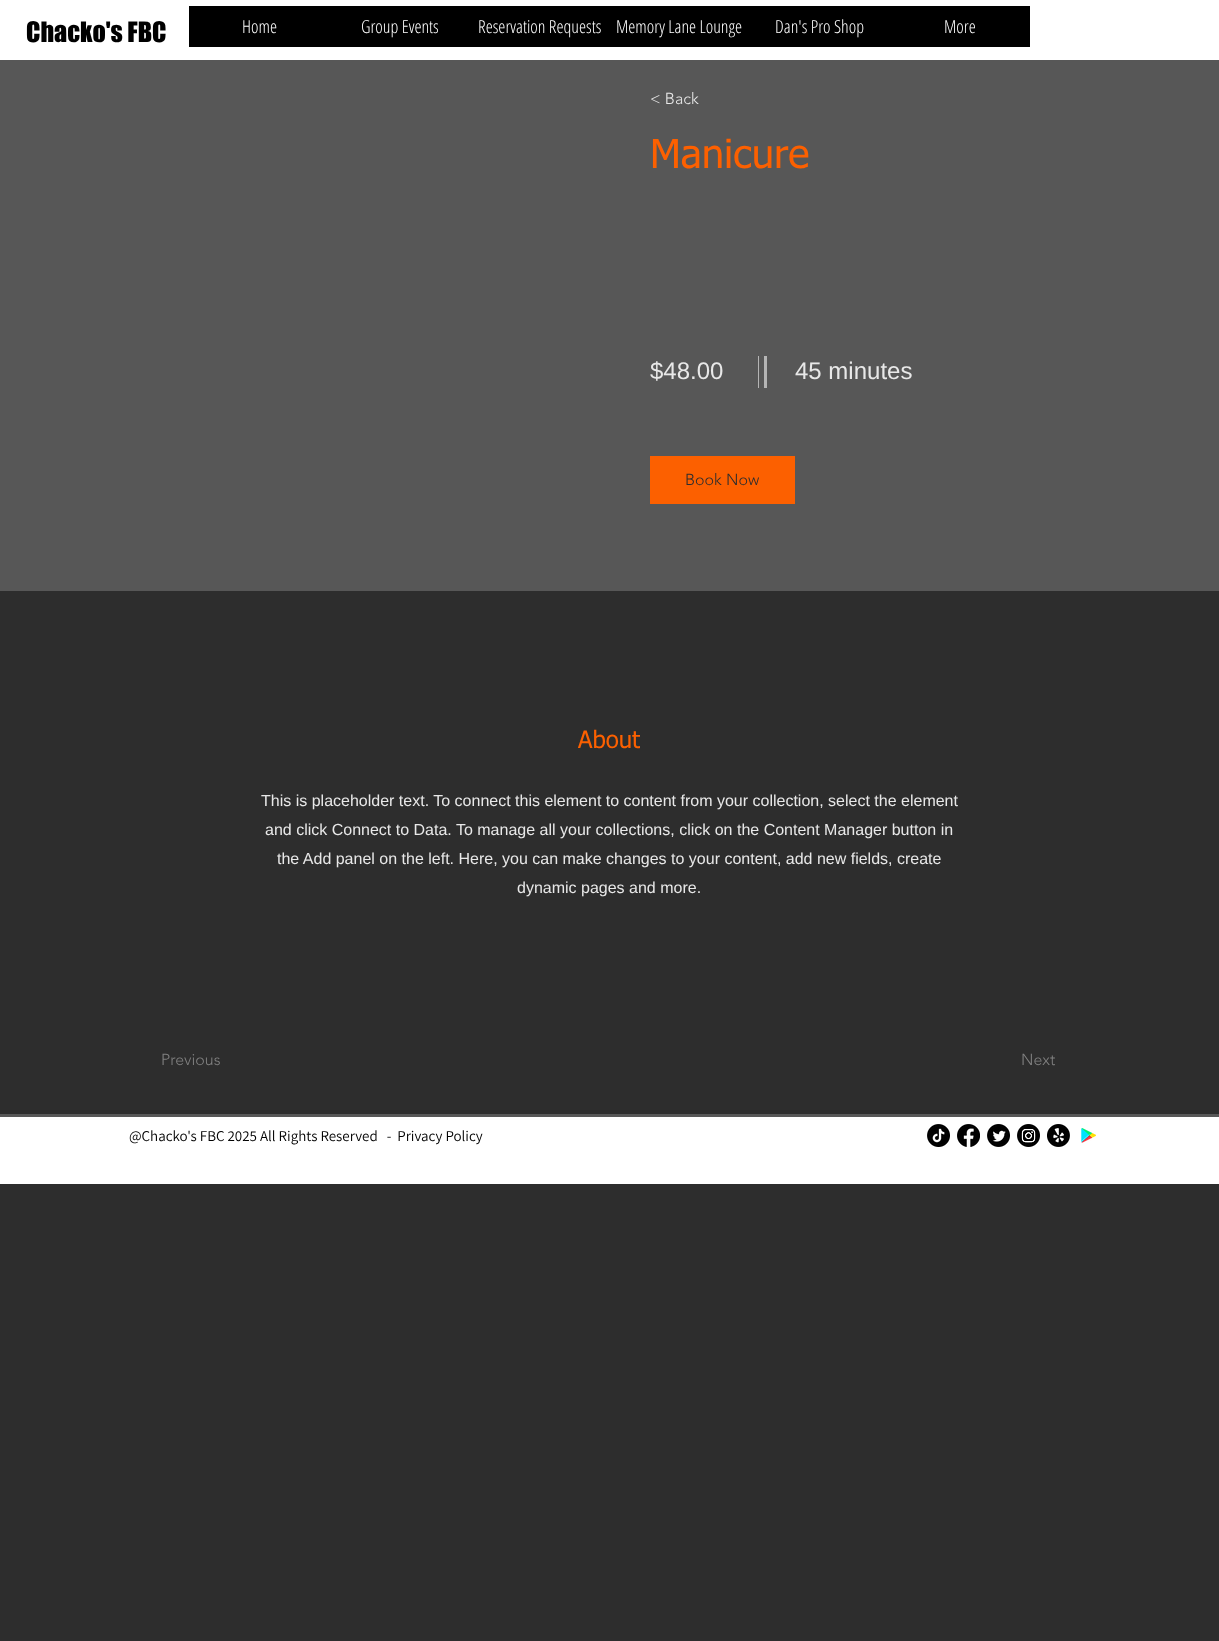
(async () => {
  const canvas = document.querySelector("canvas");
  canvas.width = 1219;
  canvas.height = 1641;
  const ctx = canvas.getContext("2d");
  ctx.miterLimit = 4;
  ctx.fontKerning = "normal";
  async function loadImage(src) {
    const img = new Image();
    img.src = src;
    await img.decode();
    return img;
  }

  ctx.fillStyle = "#2d2d2d";
  ctx.fillRect(0, 0, 1219, 1641);
  for (const [x, y, w, h, color] of [
    [0, 0, 1219, 60, "#ffffff"],
    [189, 6, 841, 41, "#000000"],
    [0, 60, 1219, 531, "#575757"],
    [764, 356, 3, 32, "#b5b5b5"],
    [758, 356, 1, 32, "#b5b5b5"],
    [650, 456, 145, 48, "#fc6000"],
    [0, 1117, 1219, 67, "#ffffff"],
    [0, 1114, 1219, 3, "#575757"],
  ]) {
    ctx.fillStyle = color;
    ctx.fillRect(x, y, w, h);
  }
  ctx.drawImage(await loadImage("img/1.png"), 927, 1124, 23, 23);
  ctx.drawImage(await loadImage("img/2.png"), 957, 1124, 23, 23);
  ctx.drawImage(await loadImage("img/3.png"), 987, 1124, 23, 23);
  ctx.drawImage(await loadImage("img/4.png"), 1017, 1124, 23, 23);
  ctx.drawImage(await loadImage("img/5.png"), 1047, 1124, 23, 23);
  ctx.drawImage(await loadImage("img/6.png"), 1081, 1128, 16, 15);
  ctx.font = "26px 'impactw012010'";
  ctx.fillStyle = "#000000";
  ctx.fillText("Chacko's FBC", 26, 42);
  ctx.font = "300 18px Open Sans Condensed";
  ctx.fillStyle = "#ffffff";
  for (const [text, x, y] of [
    ["Home", 242, 33],
    ["Group Events", 361, 33],
    ["Reservation Requests", 478, 33],
    ["Memory Lane Lounge", 616, 33],
    ["Dan's Pro Shop", 775, 33],
    ["More", 944, 33],
  ]) {
    ctx.fillText(text, x, y);
  }
  ctx.font = "300 16px 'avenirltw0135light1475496'";
  ctx.fillStyle = "#e8e8e8";
  ctx.fillText("< Back", 650, 104);
  ctx.font = "40px tahoma";
  ctx.fillStyle = "#fc6000";
  ctx.fillText("Manicure", 650, 168);
  ctx.font = "24px Liberation Sans";
  ctx.fillStyle = "#e8e8e8";
  ctx.fillText("$48.00", 650, 379);
  ctx.fillText("45 minutes", 795, 379);
  ctx.font = "300 16px 'avenirltw0135light1475496'";
  ctx.fillStyle = "#2d2d2d";
  ctx.fillText("Book Now", 685, 485);
  ctx.font = "24px tahoma";
  ctx.fillStyle = "#fc6000";
  ctx.fillText("About", 578, 748);
  ctx.font = "16px Liberation Sans";
  ctx.fillStyle = "#e8e8e8";
  for (const [text, x, y] of [
    ["This is placeholder text. To connect this element to content from your collection, select the element", 261, 806],
    ["and click Connect to Data. To manage all your collections, click on the Content Manager button in", 265, 835],
    ["the Add panel on the left. Here, you can make changes to your content, add new fields, create", 277, 864],
    ["dynamic pages and more.", 517, 893],
  ]) {
    ctx.fillText(text, x, y);
  }
  ctx.font = "300 16px 'avenirltw0135light1475496'";
  ctx.fillStyle = "#818181";
  ctx.fillText("Previous", 161, 1065);
  ctx.fillText("Next", 1021, 1065);
  ctx.font = "15px Assistant";
  ctx.fillStyle = "#000000";
  ctx.fillText("@Chacko's FBC 2025 All Rights Reserved   -  Privacy Policy", 129, 1141);
})();
